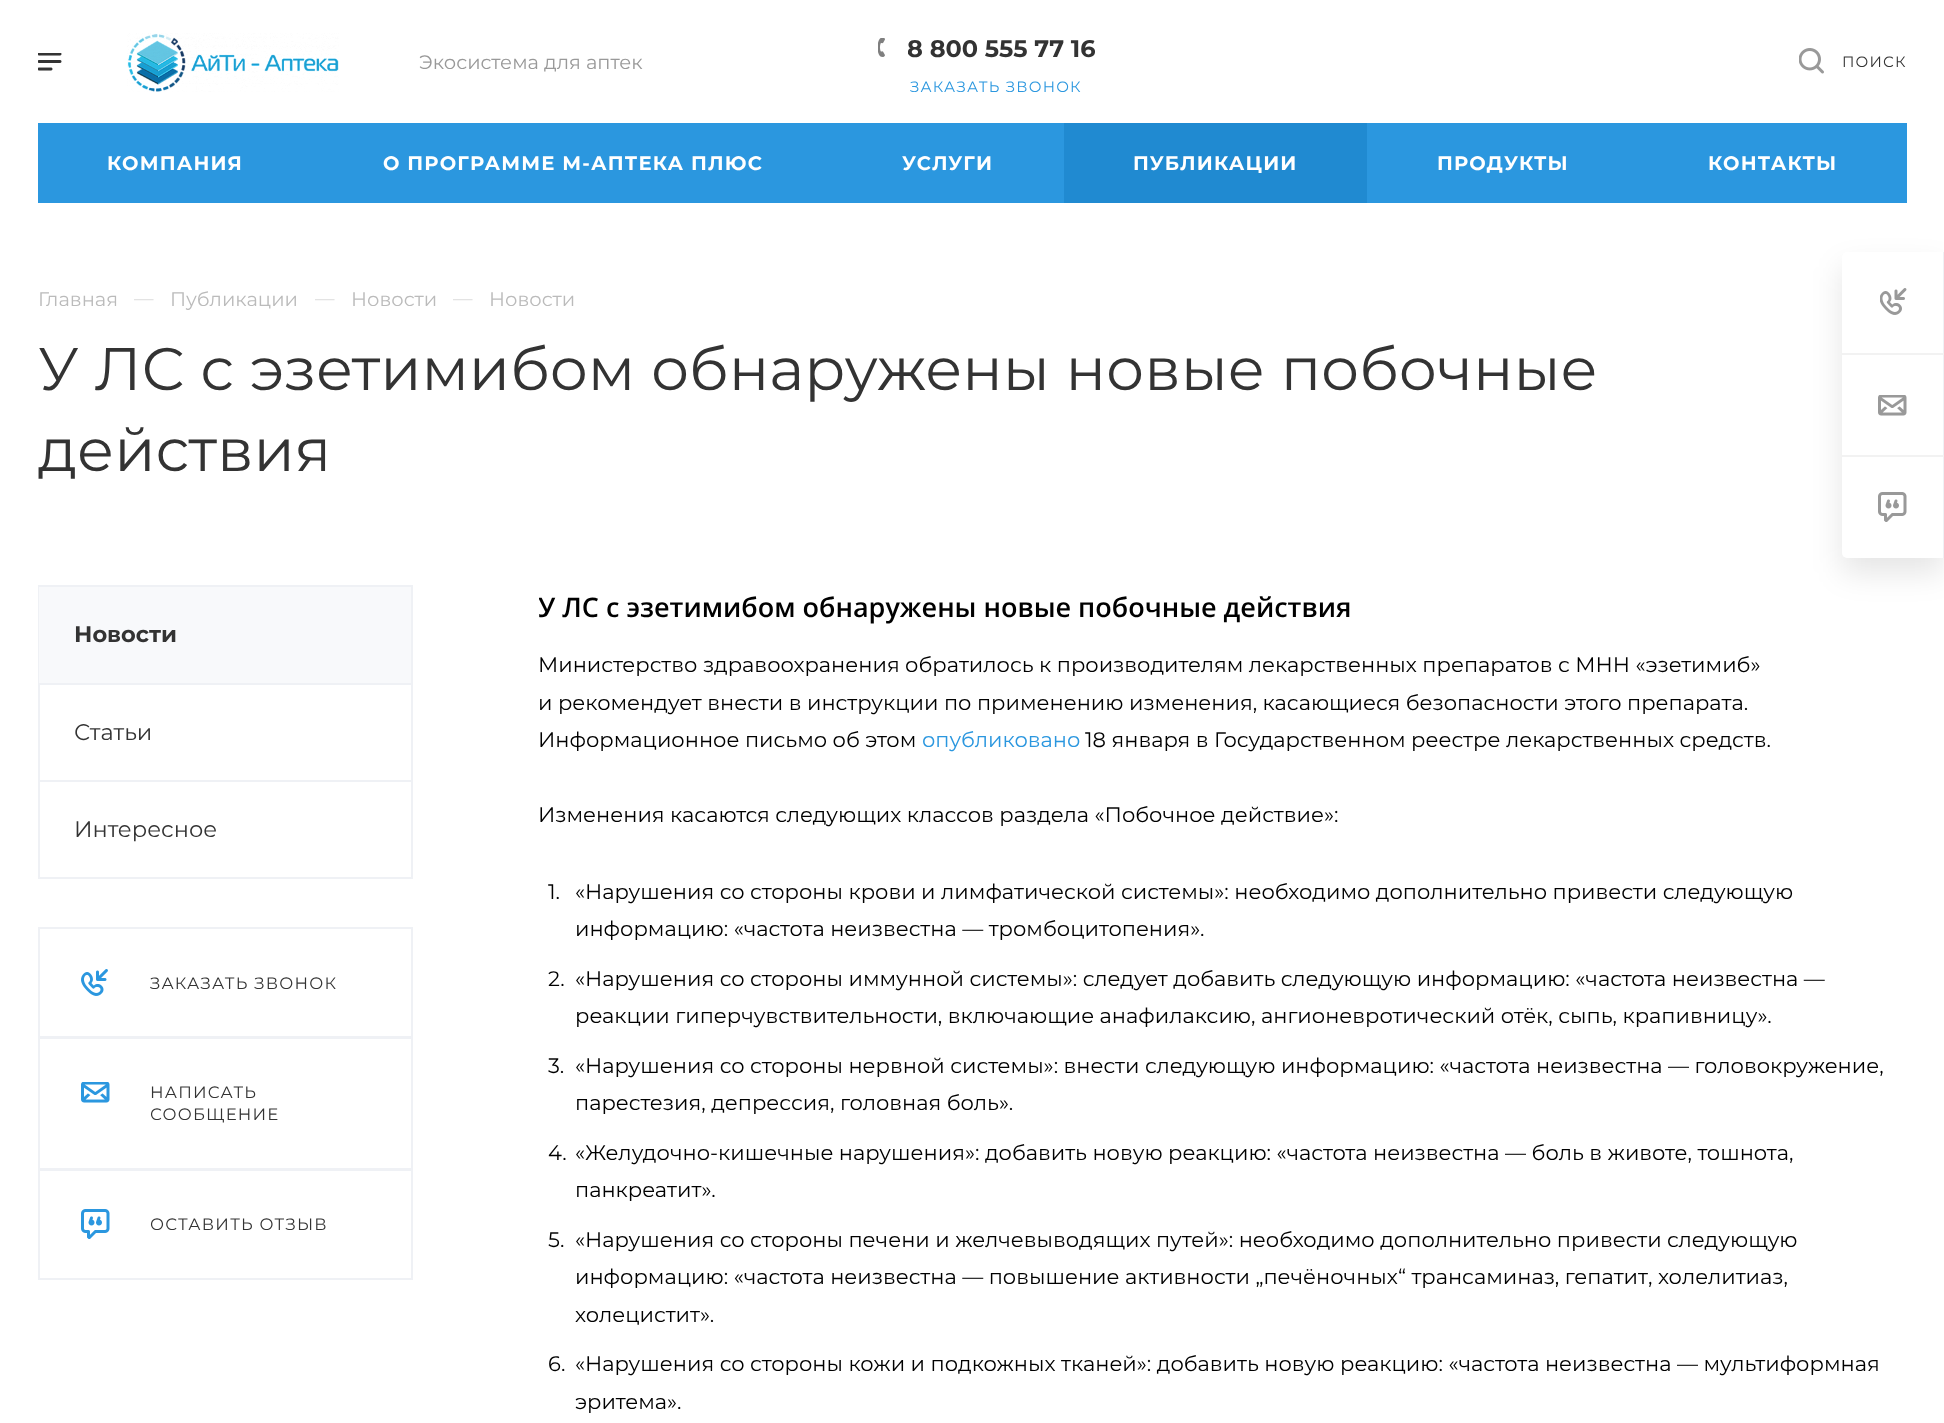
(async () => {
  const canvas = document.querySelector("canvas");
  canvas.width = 1944;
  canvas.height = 1423;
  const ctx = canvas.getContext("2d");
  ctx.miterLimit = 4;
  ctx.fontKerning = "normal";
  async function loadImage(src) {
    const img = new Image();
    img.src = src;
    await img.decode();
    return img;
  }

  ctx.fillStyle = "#ffffff";
  ctx.fillRect(0, 0, 1944, 1423);
  ctx.drawImage(await loadImage("img/1.png"), 38, 53, 24, 18);
  ctx.drawImage(await loadImage("img/2.png"), 127, 33, 212, 59);
  ctx.drawImage(await loadImage("img/3.png"), 878, 38, 7, 19);
  ctx.drawImage(await loadImage("img/4.png"), 1799, 48, 25, 26);
  ctx.fillStyle = "#2b97df";
  ctx.fillRect(38, 123, 1869, 80);
  ctx.fillStyle = "#208ad1";
  ctx.fillRect(1064, 123, 303, 80);
  ctx.fillStyle = "rgba(0, 0, 0, 0.1)";
  ctx.filter = "blur(15px)";
  ctx.beginPath();
  ctx.roundRect(1842, 267, 102, 306, 5);
  ctx.fill();
  ctx.filter = "none";
  ctx.fillStyle = "#ffffff";
  ctx.beginPath();
  ctx.roundRect(1842, 252, 102, 306, [5, 0, 0, 5]);
  ctx.fill();
  ctx.fillStyle = "#eff1f5";
  ctx.fillRect(1943, 252, 1, 306);
  ctx.fillStyle = "#f2f2f2";
  ctx.fillRect(1842, 353, 102, 2);
  ctx.drawImage(await loadImage("img/5.png"), 1880, 288, 27, 27);
  ctx.fillRect(1842, 455, 102, 2);
  ctx.drawImage(await loadImage("img/6.png"), 1878, 395, 29, 21);
  ctx.drawImage(await loadImage("img/7.png"), 1878, 492, 29, 30);
  ctx.strokeStyle = "#eff1f5";
  ctx.lineWidth = 2;
  ctx.strokeRect(39, 586, 373, 292);
  for (const [x, y, w, h, color] of [
    [39, 587, 372, 96, "#f8f9fb"],
    [39, 683, 372, 2, "#eff1f5"],
    [39, 780, 372, 2, "#eff1f5"],
  ]) {
    ctx.fillStyle = color;
    ctx.fillRect(x, y, w, h);
  }
  ctx.strokeRect(39, 928, 373, 109);
  ctx.drawImage(await loadImage("img/8.png"), 81, 969, 27, 27);
  ctx.strokeRect(39, 1038, 373, 131);
  ctx.drawImage(await loadImage("img/9.png"), 81, 1082, 29, 21);
  ctx.strokeRect(39, 1170, 373, 109);
  ctx.drawImage(await loadImage("img/10.png"), 81, 1209, 29, 30);
  ctx.font = "19.5px Montserrat";
  ctx.fillStyle = "#999999";
  ctx.fillText("Экосистема для аптек", 419, 69);
  ctx.save();
  ctx.beginPath();
  ctx.rect(908, 38, 187, 22);
  ctx.clip();
  ctx.font = "bold 24px Montserrat";
  ctx.fillStyle = "#333333";
  ctx.fillText("8 800 555 77 16", 907, 57);
  ctx.restore();
  ctx.letterSpacing = "1.2px";
  ctx.font = "15px Montserrat";
  ctx.fillStyle = "#2b97df";
  ctx.fillText("ЗАКАЗАТЬ ЗВОНОК", 910, 92);
  ctx.fillStyle = "#333333";
  ctx.fillText("ПОИСК", 1842, 67);
  ctx.font = "bold 19.5px Montserrat";
  ctx.fillStyle = "#ffffff";
  for (const [text, x, y] of [
    ["КОМПАНИЯ", 107, 170],
    ["О ПРОГРАММЕ М-АПТЕКА ПЛЮС", 383, 170],
    ["УСЛУГИ", 902, 170],
    ["ПУБЛИКАЦИИ", 1133, 170],
    ["ПРОДУКТЫ", 1437, 170],
    ["КОНТАКТЫ", 1708, 170],
  ]) {
    ctx.fillText(text, x, y);
  }
  ctx.letterSpacing = "0px";
  ctx.font = "19.5px Montserrat";
  ctx.fillStyle = "#bbbbbb";
  ctx.fillText("Главная", 38, 306);
  ctx.fillStyle = "#dddddd";
  ctx.fillText("—", 134, 305);
  ctx.fillStyle = "#bbbbbb";
  ctx.fillText("Публикации", 170, 306);
  ctx.fillStyle = "#dddddd";
  ctx.fillText("—", 315, 305);
  ctx.fillStyle = "#bbbbbb";
  ctx.fillText("Новости", 351, 306);
  ctx.fillStyle = "#dddddd";
  ctx.fillText("—", 453, 305);
  ctx.fillStyle = "#bbbbbb";
  ctx.fillText("Новости", 489, 306);
  ctx.font = "60px Montserrat";
  ctx.fillStyle = "#333333";
  ctx.fillText("У ЛС с эзетимибом обнаружены новые побочные", 38, 390);
  ctx.fillText("действия", 38, 471);
  ctx.font = "bold 22.5px Montserrat";
  ctx.fillText("Новости", 74, 642);
  ctx.font = "22.5px Montserrat";
  ctx.fillText("Статьи", 74, 740);
  ctx.fillText("Интересное", 74, 837);
  ctx.letterSpacing = "1.2px";
  ctx.font = "16.5px Montserrat";
  for (const [text, x, y] of [
    ["ЗАКАЗАТЬ ЗВОНОК", 150, 989],
    ["НАПИСАТЬ", 150, 1098],
    ["СООБЩЕНИЕ", 150, 1120],
    ["ОСТАВИТЬ ОТЗЫВ", 150, 1230],
  ]) {
    ctx.fillText(text, x, y);
  }
  ctx.save();
  ctx.beginPath();
  ctx.rect(539, 585, 1347, 62);
  ctx.clip();
  ctx.letterSpacing = "0px";
  ctx.font = "600 27px Open Sans";
  ctx.fillStyle = "#000000";
  ctx.fillText("У ЛС с эзетимибом обнаружены новые побочные действия", 538, 617);
  ctx.restore();
  ctx.letterSpacing = "0px";
  ctx.font = "21px Montserrat";
  ctx.fillStyle = "#000000";
  for (const [text, x, y] of [
    ["Министерство здравоохранения обратилось к производителям лекарственных препаратов с МНН «эзетимиб»", 538, 672],
    ["и рекомендует внести в инструкции по применению изменения, касающиеся безопасности этого препарата.", 538, 710],
    ["Информационное письмо об этом", 538, 747],
  ]) {
    ctx.fillText(text, x, y);
  }
  ctx.fillStyle = "#2b97df";
  ctx.fillText("опубликовано", 922, 747);
  ctx.fillStyle = "#000000";
  for (const [text, x, y] of [
    ["18 января в Государственном реестре лекарственных средств.", 1085, 747],
    ["Изменения касаются следующих классов раздела «Побочное действие»:", 538, 822],
    ["1.", 548, 899],
    ["«Нарушения со стороны крови и лимфатической системы»: необходимо дополнительно привести следующую", 575, 899],
    ["информацию: «частота неизвестна — тромбоцитопения».", 575, 936],
    ["2.", 548, 986],
    ["«Нарушения со стороны иммунной системы»: следует добавить следующую информацию: «частота неизвестна —", 575, 986],
    ["реакции гиперчувствительности, включающие анафилаксию, ангионевротический отёк, сыпь, крапивницу».", 575, 1023],
    ["3.", 548, 1073],
    ["«Нарушения со стороны нервной системы»: внести следующую информацию: «частота неизвестна — головокружение,", 575, 1073],
    ["парестезия, депрессия, головная боль».", 575, 1110],
    ["4.", 548, 1160],
    ["«Желудочно-кишечные нарушения»: добавить новую реакцию: «частота неизвестна — боль в животе, тошнота,", 575, 1160],
    ["панкреатит».", 575, 1197],
    ["5.", 548, 1247],
    ["«Нарушения со стороны печени и желчевыводящих путей»: необходимо дополнительно привести следующую", 575, 1247],
    ["информацию: «частота неизвестна — повышение активности „печёночных“ трансаминаз, гепатит, холелитиаз,", 575, 1284],
    ["холецистит».", 575, 1322],
    ["6.", 548, 1371],
    ["«Нарушения со стороны кожи и подкожных тканей»: добавить новую реакцию: «частота неизвестна — мультиформная", 575, 1371],
    ["эритема».", 575, 1409],
  ]) {
    ctx.fillText(text, x, y);
  }
})();
